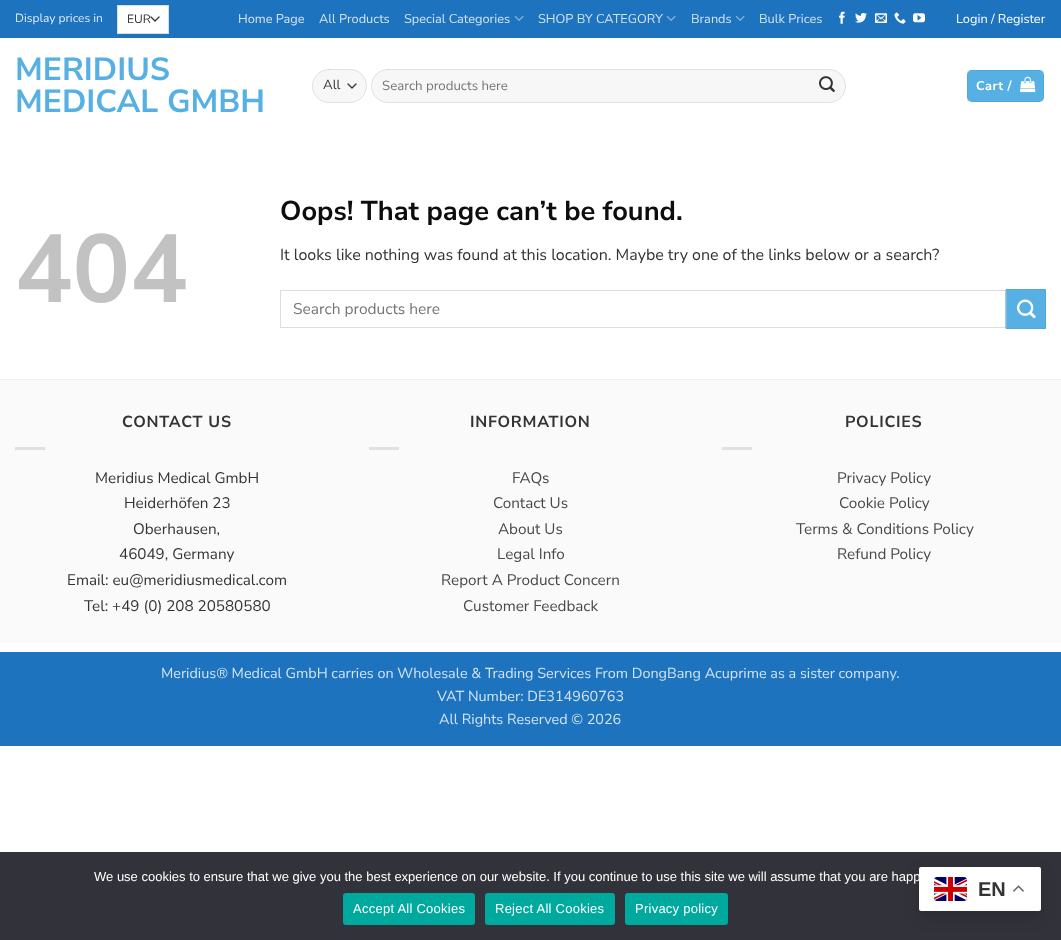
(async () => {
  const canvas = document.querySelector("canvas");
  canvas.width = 1061;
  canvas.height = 940;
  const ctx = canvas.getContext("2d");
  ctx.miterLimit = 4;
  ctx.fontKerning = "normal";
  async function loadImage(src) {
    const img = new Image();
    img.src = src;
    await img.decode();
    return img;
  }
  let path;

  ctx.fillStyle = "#ffffff";
  ctx.fillRect(0, 0, 1061, 940);
  ctx.fillStyle = "#1e73be";
  ctx.fillRect(0, 0, 1061, 38);
  ctx.fillStyle = "#ffffff";
  ctx.fillRect(118, 6, 50, 27);
  path = new Path2D("M151 17L155 21L159 17");
  ctx.strokeStyle = "#333333";
  ctx.lineWidth = 1.3;
  ctx.lineCap = "round";
  ctx.lineJoin = "round";
  ctx.stroke(path);
  ctx.strokeStyle = "#dddddd";
  ctx.lineWidth = 1;
  ctx.lineJoin = "miter";
  ctx.strokeRect(117.5, 5.5, 51, 28);
  ctx.drawImage(await loadImage("img/1.png"), 514, 15, 10, 6);
  ctx.drawImage(await loadImage("img/1.png"), 666, 15, 10, 6);
  ctx.drawImage(await loadImage("img/1.png"), 735, 15, 10, 6);
  ctx.drawImage(await loadImage("img/2.png"), 839, 11, 6, 13);
  ctx.drawImage(await loadImage("img/3.png"), 855, 12, 12, 11);
  ctx.drawImage(await loadImage("img/4.png"), 875, 13, 12, 10);
  ctx.drawImage(await loadImage("img/5.png"), 894, 12, 12, 12);
  ctx.drawImage(await loadImage("img/6.png"), 913, 13, 12, 10);
  ctx.fillStyle = "#f7f7f7";
  ctx.beginPath();
  ctx.roundRect(312, 69, 55, 34, 17);
  ctx.fill();
  path = new Path2D("M348 84L352 88L356 84");
  ctx.strokeStyle = "#333333";
  ctx.lineWidth = 1.3;
  ctx.lineJoin = "round";
  ctx.stroke(path);
  ctx.beginPath();
  ctx.roundRect(312.5, 69.5, 54, 33, 16.5);
  ctx.strokeStyle = "rgba(0, 0, 0, 0.09)";
  ctx.lineWidth = 1;
  ctx.lineJoin = "miter";
  ctx.stroke();
  ctx.beginPath();
  ctx.roundRect(371, 69, 475, 34, 17);
  ctx.fill();
  ctx.beginPath();
  ctx.roundRect(371.5, 69.5, 474, 33, 16.5);
  ctx.stroke();
  ctx.drawImage(await loadImage("img/7.png"), 819, 76, 16, 16);
  ctx.fillStyle = "#56b0e4";
  ctx.beginPath();
  ctx.roundRect(967, 70, 77, 32, 5);
  ctx.fill();
  ctx.strokeStyle = "rgba(0, 0, 0, 0.05)";
  ctx.strokeRect(967.5, 70.5, 76, 31);
  ctx.drawImage(await loadImage("img/8.png"), 1020, 76, 16, 17);
  ctx.strokeStyle = "#dddddd";
  ctx.strokeRect(280.5, 290.5, 725, 37);
  ctx.beginPath();
  ctx.rect(1006.5, 289.5, 39, 39);
  ctx.fill();
  ctx.strokeStyle = "#52a7d9";
  ctx.stroke();
  ctx.drawImage(await loadImage("img/9.png"), 1017, 299, 19, 20);
  for (const [x, y, w, h, color] of [
    [0, 380, 1061, 263, "#fafafa"],
    [0, 379, 1061, 1, "#eeeeee"],
    [15, 447, 30, 3, "#e1e1e1"],
    [369, 447, 30, 3, "#e1e1e1"],
    [722, 447, 30, 3, "#e1e1e1"],
    [0, 652, 1061, 94, "#1e73be"],
    [0, 852, 1061, 88, "#32323a"],
  ]) {
    ctx.fillStyle = color;
    ctx.fillRect(x, y, w, h);
  }
  ctx.fillStyle = "#00a99d";
  ctx.beginPath();
  ctx.roundRect(343, 893, 132, 32, 3);
  ctx.fill();
  ctx.beginPath();
  ctx.roundRect(485, 893, 130, 32, 3);
  ctx.fill();
  ctx.beginPath();
  ctx.roundRect(625, 893, 103, 32, 3);
  ctx.fill();
  ctx.fillStyle = "rgba(0, 0, 0, 0.15)";
  ctx.filter = "blur(7.5px)";
  ctx.beginPath();
  ctx.roundRect(919, 872, 122, 44, 2);
  ctx.fill();
  ctx.filter = "none";
  ctx.fillStyle = "#ffffff";
  ctx.beginPath();
  ctx.roundRect(919, 867, 122, 44, 2);
  ctx.fill();
  ctx.drawImage(await loadImage("img/10.png"), 934, 877, 33, 24);
  ctx.drawImage(await loadImage("img/11.png"), 1013, 885, 11, 7);
  ctx.font = "12px Nunito Sans";
  ctx.fillStyle = "#ddeaf5";
  ctx.fillText("Display prices in", 15, 22);
  ctx.fillStyle = "#333333";
  ctx.fillText("EUR", 127, 23);
  ctx.font = "12.75px Nunito Sans";
  ctx.fillStyle = "#d2e3f2";
  for (const [text, x, y] of [
    ["Home Page", 238, 23],
    ["All Products", 319, 23],
    ["Special Categories", 404, 23],
    ["SHOP BY CATEGORY", 538, 23],
    ["Brands", 691, 23],
    ["Bulk Prices", 759, 23],
  ]) {
    ctx.fillText(text, x, y);
  }
  ctx.fillStyle = "#ffffff";
  ctx.fillText("Login / Register", 956, 23);
  ctx.font = "bold 32px Nunito Sans";
  ctx.fillStyle = "#56b0e4";
  ctx.fillText("MERIDIUS", 15, 80);
  ctx.fillText("MEDICAL GMBH", 15, 112);
  ctx.font = "13.25px Nunito Sans";
  ctx.fillStyle = "#333333";
  ctx.fillText("All", 323, 89);
  ctx.fillStyle = "#757575";
  ctx.fillText("Search products here", 382, 90);
  ctx.letterSpacing = "0.5px";
  ctx.font = "bold 12.75px Nunito Sans";
  ctx.fillStyle = "#ffffff";
  ctx.fillText("Cart /", 976, 90);
  ctx.letterSpacing = "0px";
  ctx.font = "bold 96px Nunito Sans";
  ctx.fillStyle = "#c2c2c2";
  ctx.fillText("404", 15, 302);
  ctx.font = "bold 27.25px Nunito Sans";
  ctx.fillStyle = "#0d0d0d";
  ctx.fillText("Oops! That page can’t be found.", 280, 220);
  ctx.font = "16px Nunito Sans";
  ctx.fillStyle = "#333333";
  ctx.fillText("It looks like nothing was found at this location. Maybe try one of the links below or a search?", 280, 260);
  ctx.font = "15.5px Nunito Sans";
  ctx.fillStyle = "#757575";
  ctx.fillText("Search products here", 293, 314);
  ctx.letterSpacing = "0.75px";
  ctx.font = "bold 16px Nunito Sans";
  ctx.fillStyle = "#333333";
  ctx.fillText("CONTACT US", 122, 427);
  ctx.letterSpacing = "0px";
  ctx.font = "15.25px Nunito Sans";
  for (const [text, x, y] of [
    ["Meridius Medical GmbH", 95, 483],
    ["Heiderhöfen 23", 124, 508],
    ["Oberhausen,", 133, 534],
    ["46049, Germany", 119, 559],
    ["Email: eu@meridiusmedical.com", 67, 585],
    ["Tel: +49 (0) 208 20580580", 84, 611],
  ]) {
    ctx.fillText(text, x, y);
  }
  ctx.letterSpacing = "0.75px";
  ctx.font = "bold 16px Nunito Sans";
  ctx.fillText("INFORMATION", 470, 427);
  ctx.letterSpacing = "0px";
  ctx.font = "15.25px Nunito Sans";
  ctx.fillStyle = "#484848";
  for (const [text, x, y] of [
    ["FAQs", 512, 483],
    ["Contact Us", 493, 508],
    ["About Us", 498, 534],
    ["Legal Info", 497, 559],
    ["Report A Product Concern", 441, 585],
    ["Customer Feedback", 463, 611],
  ]) {
    ctx.fillText(text, x, y);
  }
  ctx.letterSpacing = "0.75px";
  ctx.font = "bold 16px Nunito Sans";
  ctx.fillStyle = "#333333";
  ctx.fillText("POLICIES", 845, 427);
  ctx.letterSpacing = "0px";
  ctx.font = "15.25px Nunito Sans";
  ctx.fillStyle = "#484848";
  for (const [text, x, y] of [
    ["Privacy Policy", 837, 483],
    ["Cookie Policy", 839, 508],
    ["Terms & Conditions Policy", 796, 534],
    ["Refund Policy", 837, 559],
  ]) {
    ctx.fillText(text, x, y);
  }
  ctx.font = "14.4px Nunito Sans";
  ctx.fillStyle = "#d2e3f2";
  for (const [text, x, y] of [
    ["Meridius® Medical GmbH carries on Wholesale & Trading Services From DongBang Acuprime as a sister company.", 161, 678],
    ["VAT Number: DE314960763", 437, 701],
    ["All Rights Reserved © 2026", 439, 724],
  ]) {
    ctx.fillText(text, x, y);
  }
  ctx.font = "13px Liberation Sans";
  ctx.fillStyle = "#ffffff";
  ctx.fillText("We use cookies to ensure that we give you the best experience on our website. If you continue to use this site we will assume that you are happ", 94, 881);
  ctx.letterSpacing = "0.25px";
  for (const [text, x, y] of [
    ["Accept All Cookies", 353, 913],
    ["Reject All Cookies", 495, 913],
    ["Privacy policy", 635, 913],
  ]) {
    ctx.fillText(text, x, y);
  }
  ctx.letterSpacing = "0px";
  ctx.font = "bold 20px Liberation Sans";
  ctx.fillStyle = "#333333";
  ctx.fillText("EN", 978, 896);
})();
